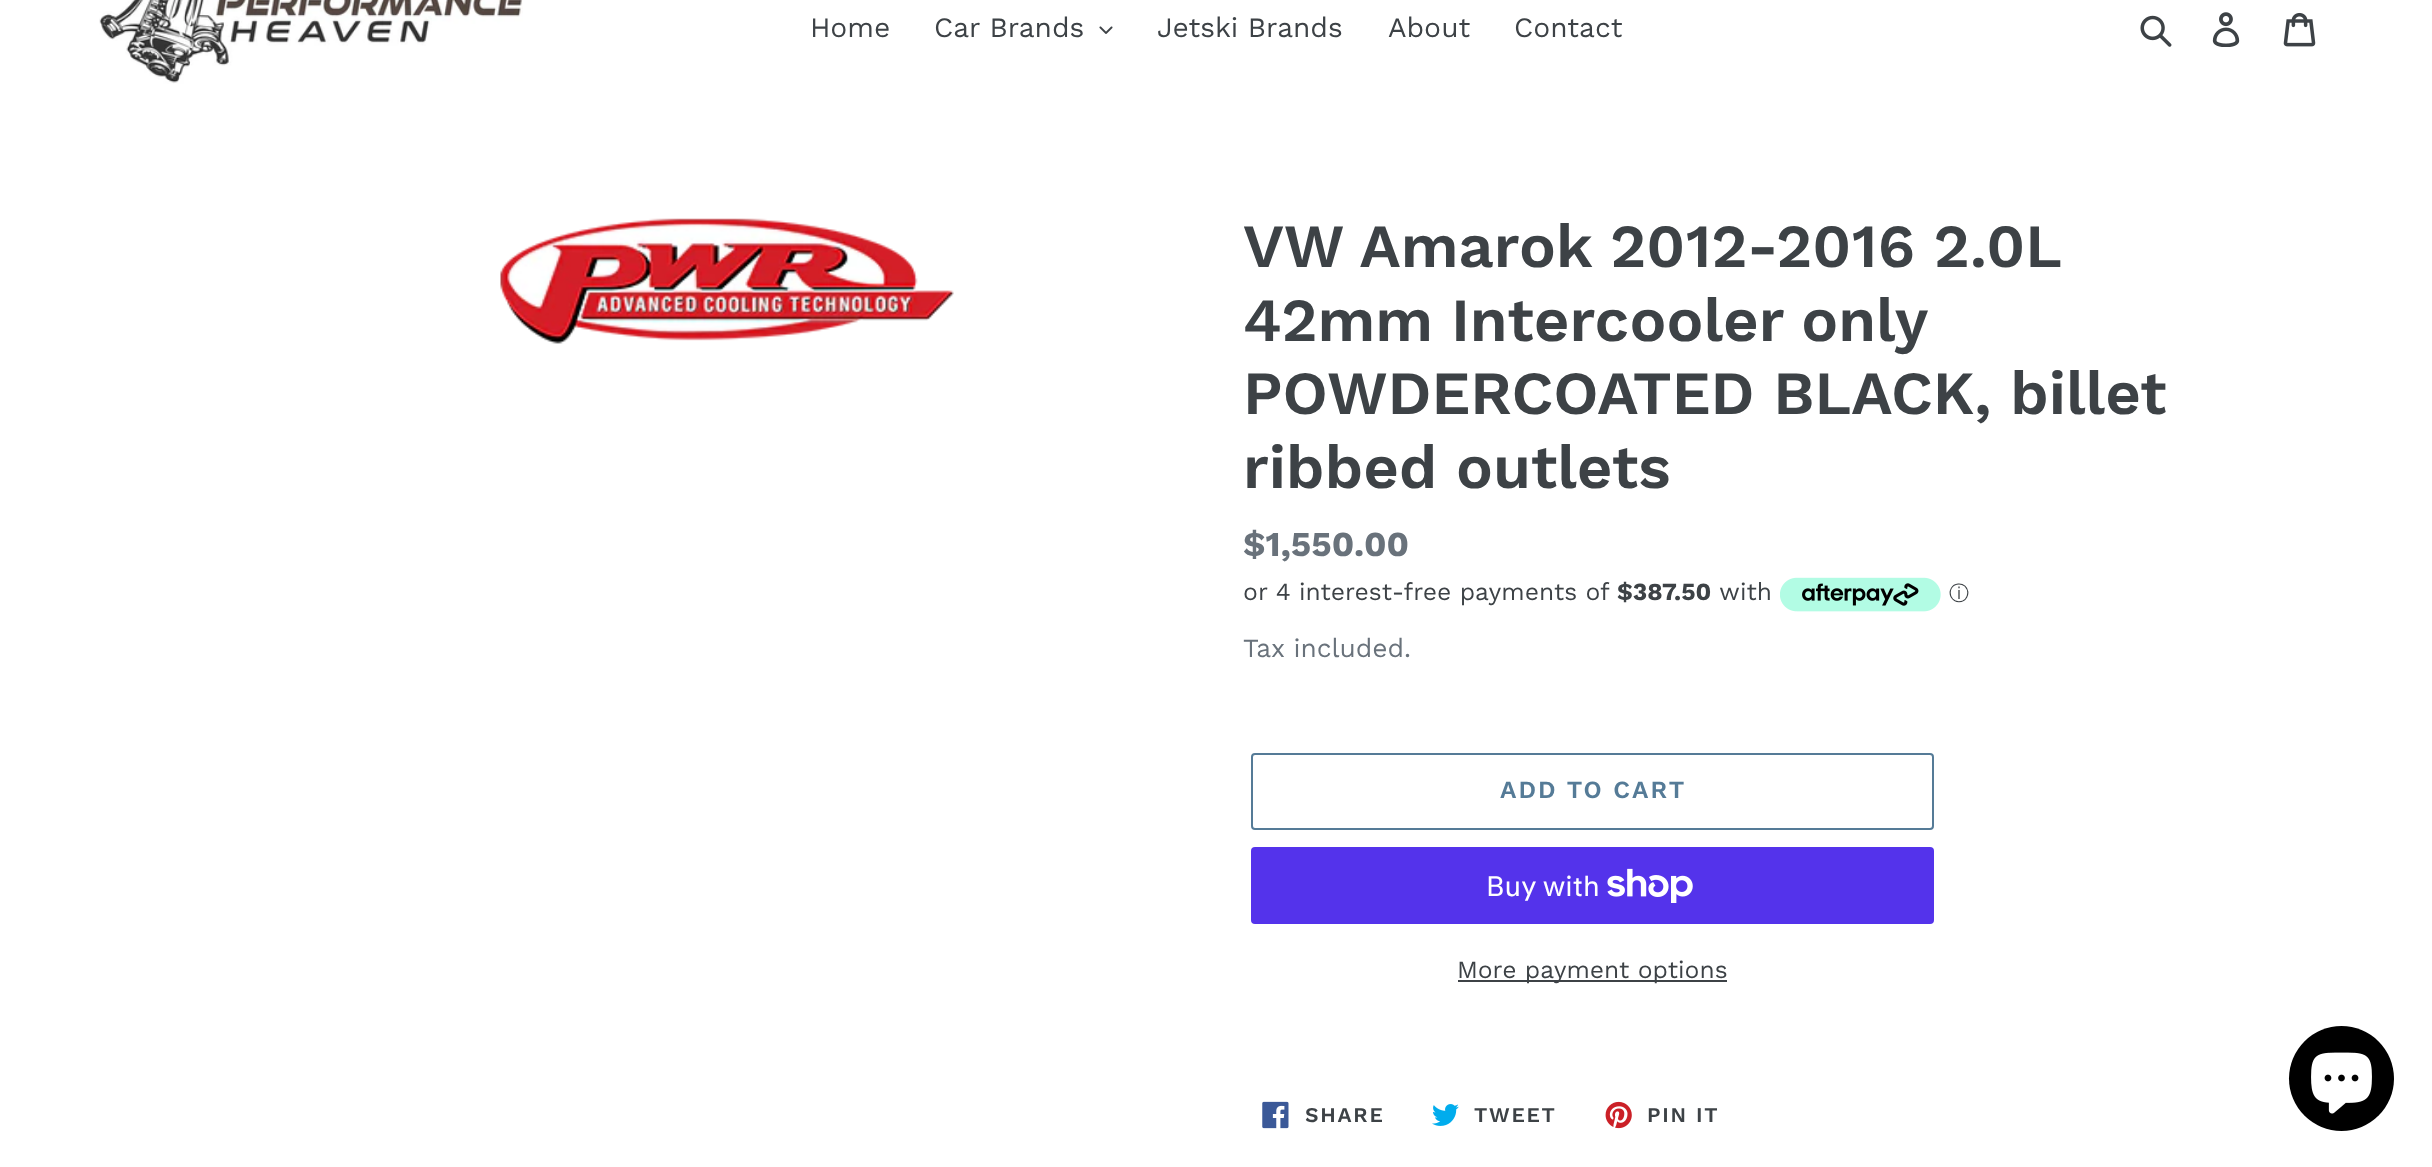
(async () => {
  const canvas = document.querySelector("canvas");
  canvas.width = 2432;
  canvas.height = 1167;
  const ctx = canvas.getContext("2d");
  ctx.miterLimit = 4;
  ctx.fontKerning = "normal";
  async function loadImage(src) {
    const img = new Image();
    img.src = src;
    await img.decode();
    return img;
  }

  ctx.fillStyle = "#ffffff";
  ctx.fillRect(0, 0, 2432, 1167);
  ctx.drawImage(await loadImage("img/1.png"), 99, 0, 424, 84);
  ctx.drawImage(await loadImage("img/2.png"), 1099, 26, 14, 8);
  ctx.drawImage(await loadImage("img/3.png"), 2140, 15, 32, 32);
  ctx.drawImage(await loadImage("img/4.png"), 2212, 12, 28, 35);
  ctx.drawImage(await loadImage("img/5.png"), 2283, 12, 33, 35);
  ctx.drawImage(await loadImage("img/6.png"), 500, 218, 454, 126);
  ctx.drawImage(await loadImage("img/7.png"), 1780, 577, 161, 35);
  ctx.beginPath();
  ctx.roundRect(1252, 754, 681, 75, 3);
  ctx.strokeStyle = "#557b97";
  ctx.lineWidth = 2;
  ctx.stroke();
  ctx.fillStyle = "#5433eb";
  ctx.beginPath();
  ctx.roundRect(1251, 847, 683, 77, 4);
  ctx.fill();
  ctx.drawImage(await loadImage("img/8.png"), 1607, 868, 86, 35);
  ctx.fillStyle = "#3d4246";
  ctx.fillRect(1458, 980, 269, 2);
  ctx.drawImage(await loadImage("img/9.png"), 1262, 1101, 27, 28);
  ctx.drawImage(await loadImage("img/10.png"), 1432, 1104, 27, 22);
  ctx.drawImage(await loadImage("img/11.png"), 1605, 1101, 27, 28);
  ctx.fillStyle = "#000000";
  ctx.beginPath();
  ctx.arc(2341.5, 1078.5, 52.5, 0, Math.PI * 2);
  ctx.fill();
  ctx.drawImage(await loadImage("img/12.png"), 2311, 1052, 61, 62);
  ctx.font = "28px Work Sans";
  ctx.fillStyle = "#3d4246";
  for (const [text, x, y] of [
    ["Home", 810, 37],
    ["Car Brands", 934, 37],
    ["Jetski Brands", 1157, 37],
    ["About", 1388, 37],
    ["Contact", 1514, 37],
  ]) {
    ctx.fillText(text, x, y);
  }
  ctx.wordSpacing = "-0.5px";
  ctx.font = "600 61.25px Work Sans";
  ctx.fillText("VW Amarok 2012-2016 2.0L", 1243, 267);
  ctx.wordSpacing = "-1px";
  ctx.fillText("42mm Intercooler only", 1243, 341);
  ctx.wordSpacing = "0px";
  ctx.fillText("POWDERCOATED BLACK, billet", 1243, 414);
  ctx.fillText("ribbed outlets", 1243, 488);
  ctx.font = "bold 35px Work Sans";
  ctx.fillStyle = "#69727b";
  ctx.fillText("$1,550.00", 1243, 556);
  ctx.font = "24.5px Work Sans";
  ctx.fillStyle = "#3d4246";
  ctx.fillText("or 4 interest-free payments of", 1243, 600);
  ctx.font = "bold 24.5px Work Sans";
  ctx.fillText("$387.50", 1617, 600);
  ctx.font = "24.5px Work Sans";
  ctx.fillText("with", 1719, 600);
  ctx.font = "500 20px WenQuanYi Zen Hei";
  ctx.fillText("ⓘ", 1949, 600);
  ctx.font = "26.25px Work Sans";
  ctx.fillStyle = "#69727b";
  ctx.fillText("Tax included.", 1243, 657);
  ctx.letterSpacing = "2px";
  ctx.font = "600 24.5px Work Sans";
  ctx.fillStyle = "#557b97";
  ctx.fillText("ADD TO CART", 1500, 798);
  ctx.letterSpacing = "0px";
  ctx.font = "28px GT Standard";
  ctx.fillStyle = "#ffffff";
  ctx.fillText("Buy with", 1486, 896);
  ctx.font = "24.5px Work Sans";
  ctx.fillStyle = "#3d4246";
  ctx.fillText("More payment options", 1457, 978);
  ctx.letterSpacing = "1.75px";
  ctx.font = "600 21px Work Sans";
  for (const [text, x, y] of [
    ["SHARE", 1305, 1122],
    ["TWEET", 1474, 1122],
    ["PIN IT", 1647, 1122],
  ]) {
    ctx.fillText(text, x, y);
  }
})();
